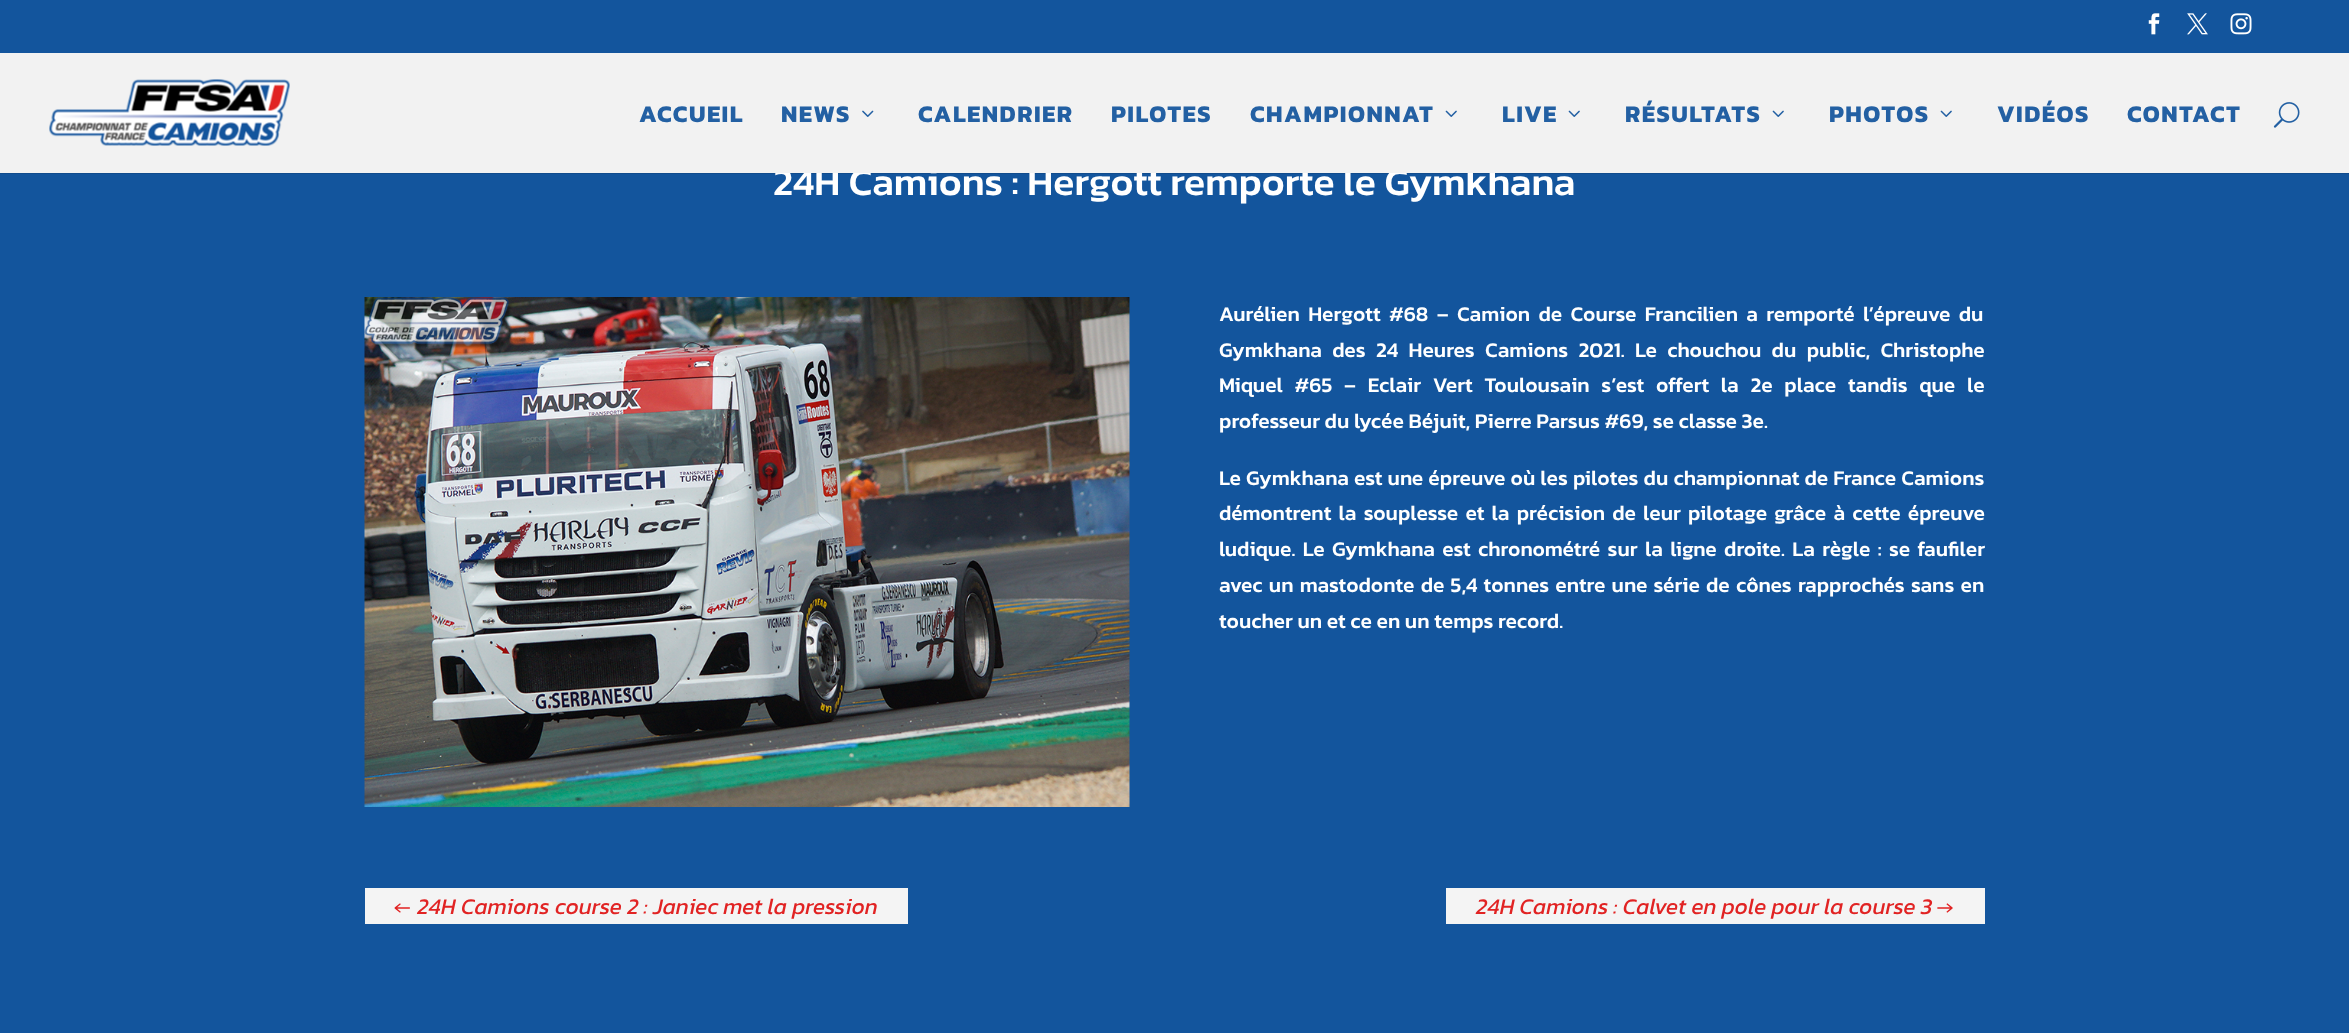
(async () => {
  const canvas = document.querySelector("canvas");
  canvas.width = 2349;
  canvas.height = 1033;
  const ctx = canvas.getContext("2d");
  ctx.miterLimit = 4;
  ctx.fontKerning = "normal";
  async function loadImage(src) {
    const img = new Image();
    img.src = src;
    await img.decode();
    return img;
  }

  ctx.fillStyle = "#13559d";
  ctx.fillRect(0, 0, 2349, 1033);
  ctx.drawImage(await loadImage("img/1.png"), 2148, 13, 12, 22);
  ctx.drawImage(await loadImage("img/2.png"), 2187, 13, 21, 22);
  ctx.drawImage(await loadImage("img/3.png"), 2230, 13, 22, 22);
  ctx.fillStyle = "rgba(0, 0, 0, 0.1)";
  ctx.fillRect(0, 173, 2349, 1);
  ctx.drawImage(await loadImage("img/8.png"), 364, 297, 766, 510);
  ctx.fillStyle = "#f4f4f4";
  ctx.fillRect(365, 888, 543, 36);
  ctx.fillRect(1446, 888, 539, 36);
  ctx.font = "500 39px Kanit";
  ctx.fillStyle = "#ffffff";
  ctx.fillText("24H Camions : Hergott remporte le Gymkhana", 773, 195);
  ctx.fillStyle = "#f2f2f2";
  ctx.fillRect(0, 53, 2349, 120);
  ctx.drawImage(await loadImage("img/7.png"), 2273, 102, 27, 26);
  ctx.letterSpacing = "1.5px";
  ctx.font = "bold 24px Kanit";
  ctx.fillStyle = "#2360a3";
  ctx.fillText("CONTACT", 2127, 122);
  ctx.fillText("VIDÉOS", 1997, 122);
  ctx.drawImage(await loadImage("img/6.png"), 1940, 110, 12, 7);
  ctx.fillText("PHOTOS", 1829, 122);
  ctx.drawImage(await loadImage("img/6.png"), 1772, 110, 12, 7);
  ctx.fillText("RÉSULTATS", 1625, 122);
  ctx.drawImage(await loadImage("img/6.png"), 1568, 110, 12, 7);
  ctx.fillText("LIVE", 1502, 122);
  ctx.drawImage(await loadImage("img/6.png"), 1445, 110, 12, 7);
  for (const [text, x, y] of [
    ["CHAMPIONNAT", 1250, 122],
    ["PILOTES", 1111, 122],
    ["CALENDRIER", 918, 122],
  ]) {
    ctx.fillText(text, x, y);
  }
  ctx.drawImage(await loadImage("img/5.png"), 862, 110, 12, 7);
  ctx.fillText("NEWS", 781, 122);
  ctx.fillText("ACCUEIL", 639, 122);
  ctx.drawImage(await loadImage("img/4.png"), 49, 79, 241, 67);
  ctx.letterSpacing = "0px";
  ctx.wordSpacing = "3.75px";
  ctx.font = "500 21px Kanit";
  ctx.fillStyle = "#ffffff";
  ctx.fillText("Aurélien Hergott #68 – Camion de Course Francilien a remporté l’épreuve du", 1219, 321);
  ctx.wordSpacing = "5.75px";
  ctx.fillText("Gymkhana des 24 Heures Camions 2021. Le chouchou du public, Christophe", 1219, 357);
  ctx.wordSpacing = "7.1px";
  ctx.fillText("Miquel #65 – Eclair Vert Toulousain s’est offert la 2e place tandis que le", 1219, 392);
  ctx.wordSpacing = "0px";
  ctx.fillText("professeur du lycée Béjuit, Pierre Parsus #69, se classe 3e.", 1219, 428);
  ctx.wordSpacing = "0.5px";
  ctx.fillText("Le Gymkhana est une épreuve où les pilotes du championnat de France Camions", 1219, 485);
  ctx.wordSpacing = "2.6px";
  ctx.fillText("démontrent la souplesse et la précision de leur pilotage grâce à cette épreuve", 1219, 520);
  ctx.wordSpacing = "2.75px";
  ctx.fillText("ludique. Le Gymkhana est chronométré sur la ligne droite. La règle : se faufiler", 1219, 556);
  ctx.wordSpacing = "1.6px";
  ctx.fillText("avec un mastodonte de 5,4 tonnes entre une série de cônes rapprochés sans en", 1219, 592);
  ctx.wordSpacing = "0px";
  ctx.fillText("toucher un et ce en un temps record.", 1219, 628);
  ctx.font = "italic 22.5px Kanit";
  ctx.fillStyle = "#e12323";
  ctx.fillText("← 24H Camions course 2 : Janiec met la pression", 395, 914);
  ctx.fillText("24H Camions : Calvet en pole pour la course 3 →", 1476, 914);
})();
